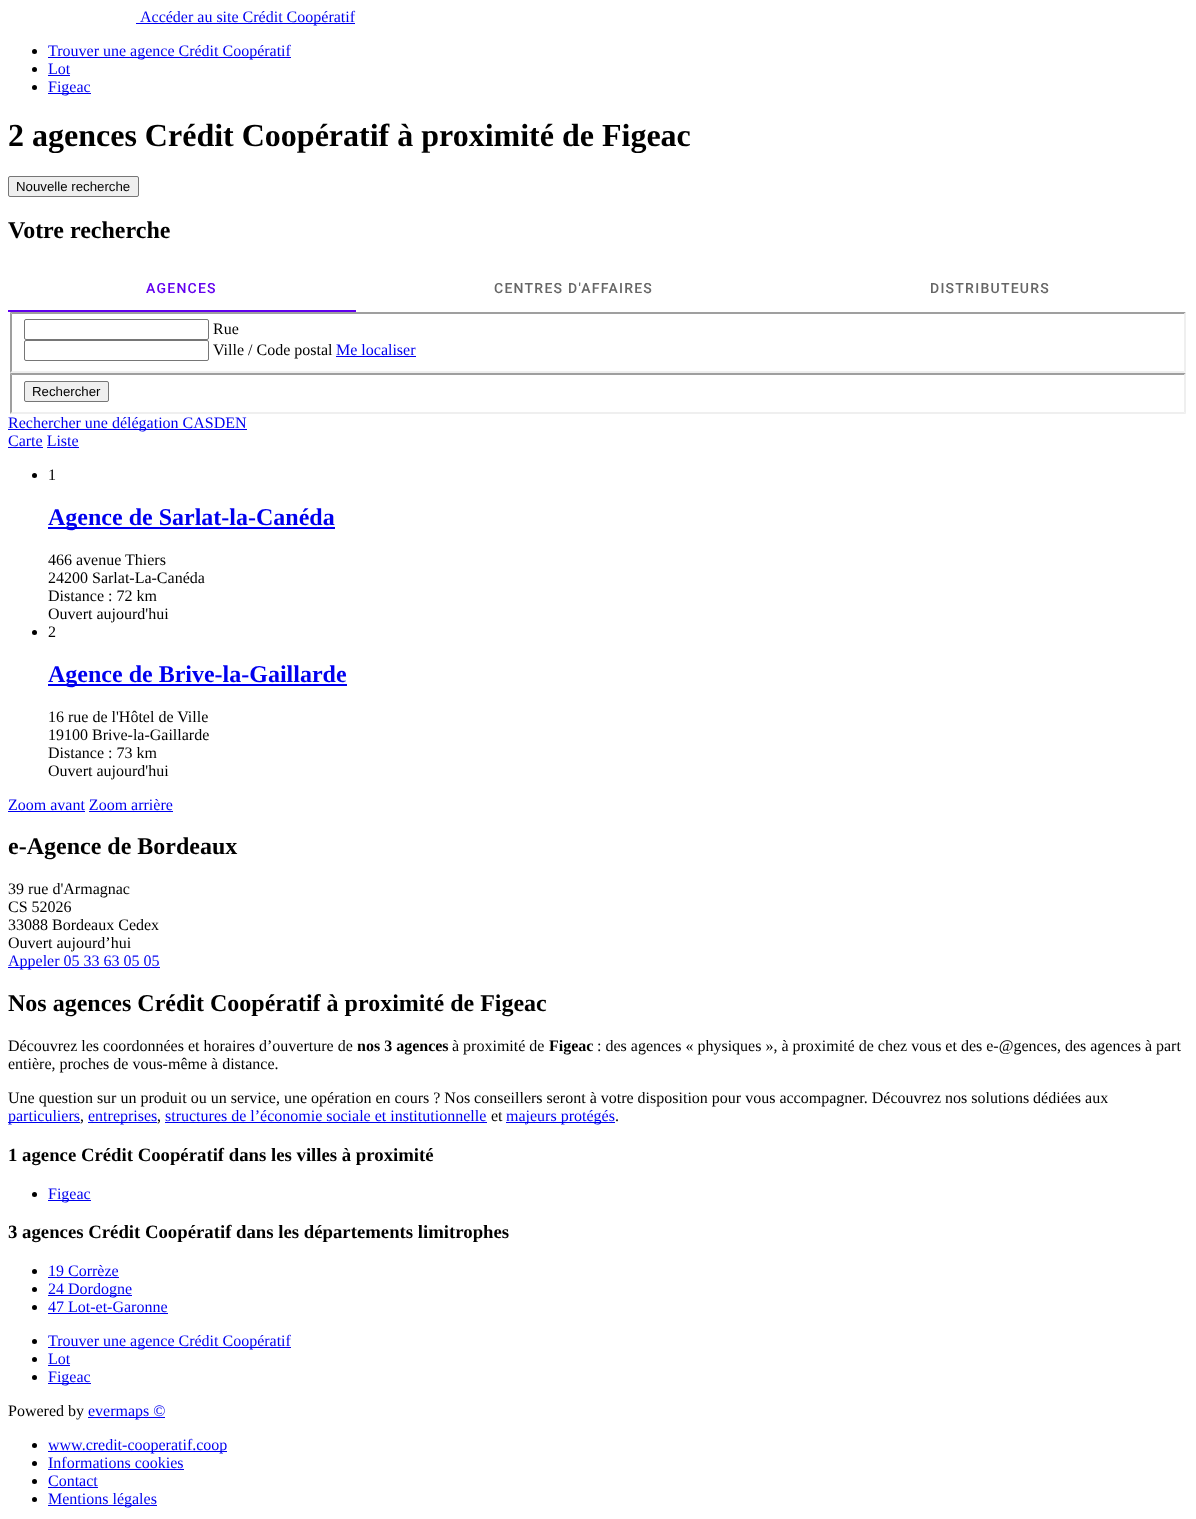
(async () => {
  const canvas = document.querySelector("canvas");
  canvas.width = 1196;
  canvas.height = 1519;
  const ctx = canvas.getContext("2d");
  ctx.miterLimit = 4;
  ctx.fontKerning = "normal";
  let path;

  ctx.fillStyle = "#ffffff";
  ctx.fillRect(0, 0, 1196, 1519);
  ctx.fillStyle = "#0000ee";
  ctx.fillRect(136, 23, 219, 1);
  ctx.fillStyle = "#000000";
  ctx.beginPath();
  ctx.arc(34.5, 51.5, 2.5, 0, Math.PI * 2);
  ctx.fill();
  ctx.fillStyle = "#0000ee";
  ctx.fillRect(48, 57, 243, 1);
  ctx.fillStyle = "#000000";
  ctx.beginPath();
  ctx.arc(34.5, 69.5, 2.5, 0, Math.PI * 2);
  ctx.fill();
  ctx.fillStyle = "#0000ee";
  ctx.fillRect(48, 75, 22, 1);
  ctx.fillStyle = "#000000";
  ctx.beginPath();
  ctx.arc(34.5, 87.5, 2.5, 0, Math.PI * 2);
  ctx.fill();
  ctx.fillStyle = "#0000ee";
  ctx.fillRect(48, 93, 43, 1);
  ctx.fillStyle = "#efefef";
  ctx.beginPath();
  ctx.roundRect(8.5, 176.5, 130, 20, 1.5);
  ctx.fill();
  ctx.strokeStyle = "#767676";
  ctx.stroke();
  ctx.fillStyle = "#6200ee";
  ctx.fillRect(8, 310, 348, 2);
  ctx.fillStyle = "#9f9f9f";
  path = new Path2D("M10 312H1186L1184 314H12Z");
  ctx.fill(path);
  ctx.fillStyle = "#efefef";
  path = new Path2D("M1186 312V373L1184 371V314Z");
  ctx.fill(path);
  path = new Path2D("M1186 373H10L12 371H1184Z");
  ctx.fill(path);
  ctx.fillStyle = "#9f9f9f";
  path = new Path2D("M10 373V312L12 314V371Z");
  ctx.fill(path);
  ctx.beginPath();
  ctx.roundRect(24.5, 319.5, 184, 20, 1.5);
  ctx.stroke();
  ctx.beginPath();
  ctx.roundRect(24.5, 340.5, 184, 20, 1.5);
  ctx.stroke();
  ctx.fillStyle = "#0000ee";
  ctx.fillRect(336, 356, 80, 1);
  ctx.fillStyle = "#9f9f9f";
  path = new Path2D("M10 373H1186L1184 375H12Z");
  ctx.fill(path);
  ctx.fillStyle = "#efefef";
  path = new Path2D("M1186 373V414L1184 412V375Z");
  ctx.fill(path);
  path = new Path2D("M1186 414H10L12 412H1184Z");
  ctx.fill(path);
  ctx.fillStyle = "#9f9f9f";
  path = new Path2D("M10 414V373L12 375V412Z");
  ctx.fill(path);
  ctx.fillStyle = "#efefef";
  ctx.beginPath();
  ctx.roundRect(24.5, 381.5, 84, 20, 1.5);
  ctx.fill();
  ctx.stroke();
  for (const [x, y, w, h, color] of [
    [8, 429, 239, 1, "#0000ee"],
    [8, 447, 35, 1, "#0000ee"],
    [47, 447, 32, 1, "#0000ee"],
  ]) {
    ctx.fillStyle = color;
    ctx.fillRect(x, y, w, h);
  }
  ctx.fillStyle = "#000000";
  ctx.beginPath();
  ctx.arc(34.5, 475.5, 2.5, 0, Math.PI * 2);
  ctx.fill();
  ctx.fillStyle = "#0000ee";
  ctx.fillRect(48, 527, 287, 2);
  ctx.fillStyle = "#000000";
  ctx.beginPath();
  ctx.arc(34.5, 632.5, 2.5, 0, Math.PI * 2);
  ctx.fill();
  for (const [x, y, w, h, color] of [
    [48, 684, 299, 2, "#0000ee"],
    [8, 811, 77, 1, "#0000ee"],
    [89, 811, 84, 1, "#0000ee"],
    [8, 967, 152, 1, "#0000ee"],
    [8, 1122, 72, 1, "#0000ee"],
    [88, 1122, 69, 1, "#0000ee"],
    [165, 1122, 322, 1, "#0000ee"],
    [506, 1122, 109, 1, "#0000ee"],
  ]) {
    ctx.fillStyle = color;
    ctx.fillRect(x, y, w, h);
  }
  ctx.fillStyle = "#000000";
  ctx.beginPath();
  ctx.arc(34.5, 1194.5, 2.5, 0, Math.PI * 2);
  ctx.fill();
  ctx.fillStyle = "#0000ee";
  ctx.fillRect(48, 1200, 43, 1);
  ctx.fillStyle = "#000000";
  ctx.beginPath();
  ctx.arc(34.5, 1271.5, 2.5, 0, Math.PI * 2);
  ctx.fill();
  ctx.fillStyle = "#0000ee";
  ctx.fillRect(48, 1277, 71, 1);
  ctx.fillStyle = "#000000";
  ctx.beginPath();
  ctx.arc(34.5, 1289.5, 2.5, 0, Math.PI * 2);
  ctx.fill();
  ctx.fillStyle = "#0000ee";
  ctx.fillRect(48, 1295, 84, 1);
  ctx.fillStyle = "#000000";
  ctx.beginPath();
  ctx.arc(34.5, 1307.5, 2.5, 0, Math.PI * 2);
  ctx.fill();
  ctx.fillStyle = "#0000ee";
  ctx.fillRect(48, 1313, 120, 1);
  ctx.fillStyle = "#000000";
  ctx.beginPath();
  ctx.arc(34.5, 1341.5, 2.5, 0, Math.PI * 2);
  ctx.fill();
  ctx.fillStyle = "#0000ee";
  ctx.fillRect(48, 1347, 243, 1);
  ctx.fillStyle = "#000000";
  ctx.beginPath();
  ctx.arc(34.5, 1359.5, 2.5, 0, Math.PI * 2);
  ctx.fill();
  ctx.fillStyle = "#0000ee";
  ctx.fillRect(48, 1365, 22, 1);
  ctx.fillStyle = "#000000";
  ctx.beginPath();
  ctx.arc(34.5, 1377.5, 2.5, 0, Math.PI * 2);
  ctx.fill();
  ctx.fillStyle = "#0000ee";
  ctx.fillRect(48, 1383, 43, 1);
  ctx.fillRect(88, 1417, 77, 1);
  ctx.fillStyle = "#000000";
  ctx.beginPath();
  ctx.arc(34.5, 1445.5, 2.5, 0, Math.PI * 2);
  ctx.fill();
  ctx.fillStyle = "#0000ee";
  ctx.fillRect(48, 1451, 179, 1);
  ctx.fillStyle = "#000000";
  ctx.beginPath();
  ctx.arc(34.5, 1463.5, 2.5, 0, Math.PI * 2);
  ctx.fill();
  ctx.fillStyle = "#0000ee";
  ctx.fillRect(48, 1469, 136, 1);
  ctx.fillStyle = "#000000";
  ctx.beginPath();
  ctx.arc(34.5, 1481.5, 2.5, 0, Math.PI * 2);
  ctx.fill();
  ctx.fillStyle = "#0000ee";
  ctx.fillRect(48, 1487, 50, 1);
  ctx.fillStyle = "#000000";
  ctx.beginPath();
  ctx.arc(34.5, 1499.5, 2.5, 0, Math.PI * 2);
  ctx.fill();
  ctx.fillStyle = "#0000ee";
  ctx.fillRect(48, 1505, 109, 1);
  ctx.font = "16px Liberation Serif";
  for (const [text, x, y] of [
    ["Accéder au site Crédit Coopératif", 140, 22],
    ["Trouver une agence Crédit Coopératif", 48, 56],
    ["Lot", 48, 74],
    ["Figeac", 48, 92],
  ]) {
    ctx.fillText(text, x, y);
  }
  ctx.font = "bold 32px Liberation Serif";
  ctx.fillStyle = "#000000";
  ctx.fillText("2 agences Crédit Coopératif à proximité de Figeac", 8, 146);
  ctx.font = "13.25px Liberation Sans";
  ctx.fillText("Nouvelle recherche", 16, 191);
  ctx.font = "bold 24px Liberation Serif";
  ctx.fillText("Votre recherche", 8, 238);
  ctx.letterSpacing = "1.25px";
  ctx.font = "500 14px Roboto";
  ctx.fillStyle = "#6200ee";
  ctx.fillText("AGENCES", 146, 293);
  ctx.fillStyle = "#666666";
  ctx.fillText("CENTRES D'AFFAIRES", 494, 293);
  ctx.fillText("DISTRIBUTEURS", 930, 293);
  ctx.letterSpacing = "0px";
  ctx.font = "16px Liberation Serif";
  ctx.fillStyle = "#000000";
  ctx.fillText("Rue", 213, 334);
  ctx.fillText("Ville / Code postal", 213, 355);
  ctx.fillStyle = "#0000ee";
  ctx.fillText("Me localiser", 336, 355);
  ctx.font = "13.25px Liberation Sans";
  ctx.fillStyle = "#000000";
  ctx.fillText("Rechercher", 32, 396);
  ctx.font = "16px Liberation Serif";
  ctx.fillStyle = "#0000ee";
  ctx.fillText("Rechercher une délégation CASDEN", 8, 428);
  ctx.fillText("Carte Liste", 8, 446);
  ctx.fillStyle = "#000000";
  ctx.fillText("1", 48, 480);
  ctx.font = "bold 24px Liberation Serif";
  ctx.fillStyle = "#0000ee";
  ctx.fillText("Agence de Sarlat-la-Canéda", 48, 525);
  ctx.font = "16px Liberation Serif";
  ctx.fillStyle = "#000000";
  for (const [text, x, y] of [
    ["466 avenue Thiers", 48, 565],
    ["24200 Sarlat-La-Canéda", 48, 583],
    ["Distance : 72 km", 48, 601],
    ["Ouvert aujourd'hui", 48, 619],
    ["2", 48, 637],
  ]) {
    ctx.fillText(text, x, y);
  }
  ctx.font = "bold 24px Liberation Serif";
  ctx.fillStyle = "#0000ee";
  ctx.fillText("Agence de Brive-la-Gaillarde", 48, 682);
  ctx.font = "16px Liberation Serif";
  ctx.fillStyle = "#000000";
  for (const [text, x, y] of [
    ["16 rue de l'Hôtel de Ville", 48, 722],
    ["19100 Brive-la-Gaillarde", 48, 740],
    ["Distance : 73 km", 48, 758],
    ["Ouvert aujourd'hui", 48, 776],
  ]) {
    ctx.fillText(text, x, y);
  }
  ctx.fillStyle = "#0000ee";
  ctx.fillText("Zoom avant Zoom arrière", 8, 810);
  ctx.font = "bold 24px Liberation Serif";
  ctx.fillStyle = "#000000";
  ctx.fillText("e-Agence de Bordeaux", 8, 854);
  ctx.font = "16px Liberation Serif";
  for (const [text, x, y] of [
    ["39 rue d'Armagnac", 8, 894],
    ["CS 52026", 8, 912],
    ["33088 Bordeaux Cedex", 8, 930],
    ["Ouvert aujourd’hui", 8, 948],
  ]) {
    ctx.fillText(text, x, y);
  }
  ctx.fillStyle = "#0000ee";
  ctx.fillText("Appeler 05 33 63 05 05", 8, 966);
  ctx.font = "bold 24px Liberation Serif";
  ctx.fillStyle = "#000000";
  ctx.fillText("Nos agences Crédit Coopératif à proximité de Figeac", 8, 1011);
  ctx.font = "16px Liberation Serif";
  ctx.fillText("Découvrez les coordonnées et horaires d’ouverture de", 8, 1051);
  ctx.font = "bold 16px Liberation Serif";
  ctx.fillText("nos 3 agences", 357, 1051);
  ctx.font = "16px Liberation Serif";
  ctx.fillText("à proximité de", 452, 1051);
  ctx.font = "bold 16px Liberation Serif";
  ctx.fillText("Figeac", 549, 1051);
  ctx.font = "16px Liberation Serif";
  for (const [text, x, y] of [
    [": des agences « physiques », à proximité de chez vous et des e-@gences, des agences à part", 597, 1051],
    ["entière, proches de vous-même à distance.", 8, 1069],
    ["Une question sur un produit ou un service, une opération en cours ? Nos conseillers seront à votre disposition pour vous accompagner. Découvrez nos solutions dédiées aux", 8, 1103],
  ]) {
    ctx.fillText(text, x, y);
  }
  ctx.fillStyle = "#0000ee";
  ctx.fillText("particuliers", 8, 1121);
  ctx.fillStyle = "#000000";
  ctx.fillText(",", 80, 1121);
  ctx.fillStyle = "#0000ee";
  ctx.fillText("entreprises", 88, 1121);
  ctx.fillStyle = "#000000";
  ctx.fillText(",", 157, 1121);
  ctx.fillStyle = "#0000ee";
  ctx.fillText("structures de l’économie sociale et institutionnelle", 165, 1121);
  ctx.fillStyle = "#000000";
  ctx.fillText("et", 491, 1121);
  ctx.fillStyle = "#0000ee";
  ctx.fillText("majeurs protégés", 506, 1121);
  ctx.fillStyle = "#000000";
  ctx.fillText(".", 615, 1121);
  ctx.font = "bold 18.75px Liberation Serif";
  ctx.fillText("1 agence Crédit Coopératif dans les villes à proximité", 8, 1161);
  ctx.font = "16px Liberation Serif";
  ctx.fillStyle = "#0000ee";
  ctx.fillText("Figeac", 48, 1199);
  ctx.font = "bold 18.75px Liberation Serif";
  ctx.fillStyle = "#000000";
  ctx.fillText("3 agences Crédit Coopératif dans les départements limitrophes", 8, 1238);
  ctx.font = "16px Liberation Serif";
  ctx.fillStyle = "#0000ee";
  for (const [text, x, y] of [
    ["19 Corrèze", 48, 1276],
    ["24 Dordogne", 48, 1294],
    ["47 Lot-et-Garonne", 48, 1312],
    ["Trouver une agence Crédit Coopératif", 48, 1346],
    ["Lot", 48, 1364],
    ["Figeac", 48, 1382],
  ]) {
    ctx.fillText(text, x, y);
  }
  ctx.fillStyle = "#000000";
  ctx.fillText("Powered by", 8, 1416);
  ctx.fillStyle = "#0000ee";
  for (const [text, x, y] of [
    ["evermaps ©", 88, 1416],
    ["www.credit-cooperatif.coop", 48, 1450],
    ["Informations cookies", 48, 1468],
    ["Contact", 48, 1486],
    ["Mentions légales", 48, 1504],
  ]) {
    ctx.fillText(text, x, y);
  }
})();
